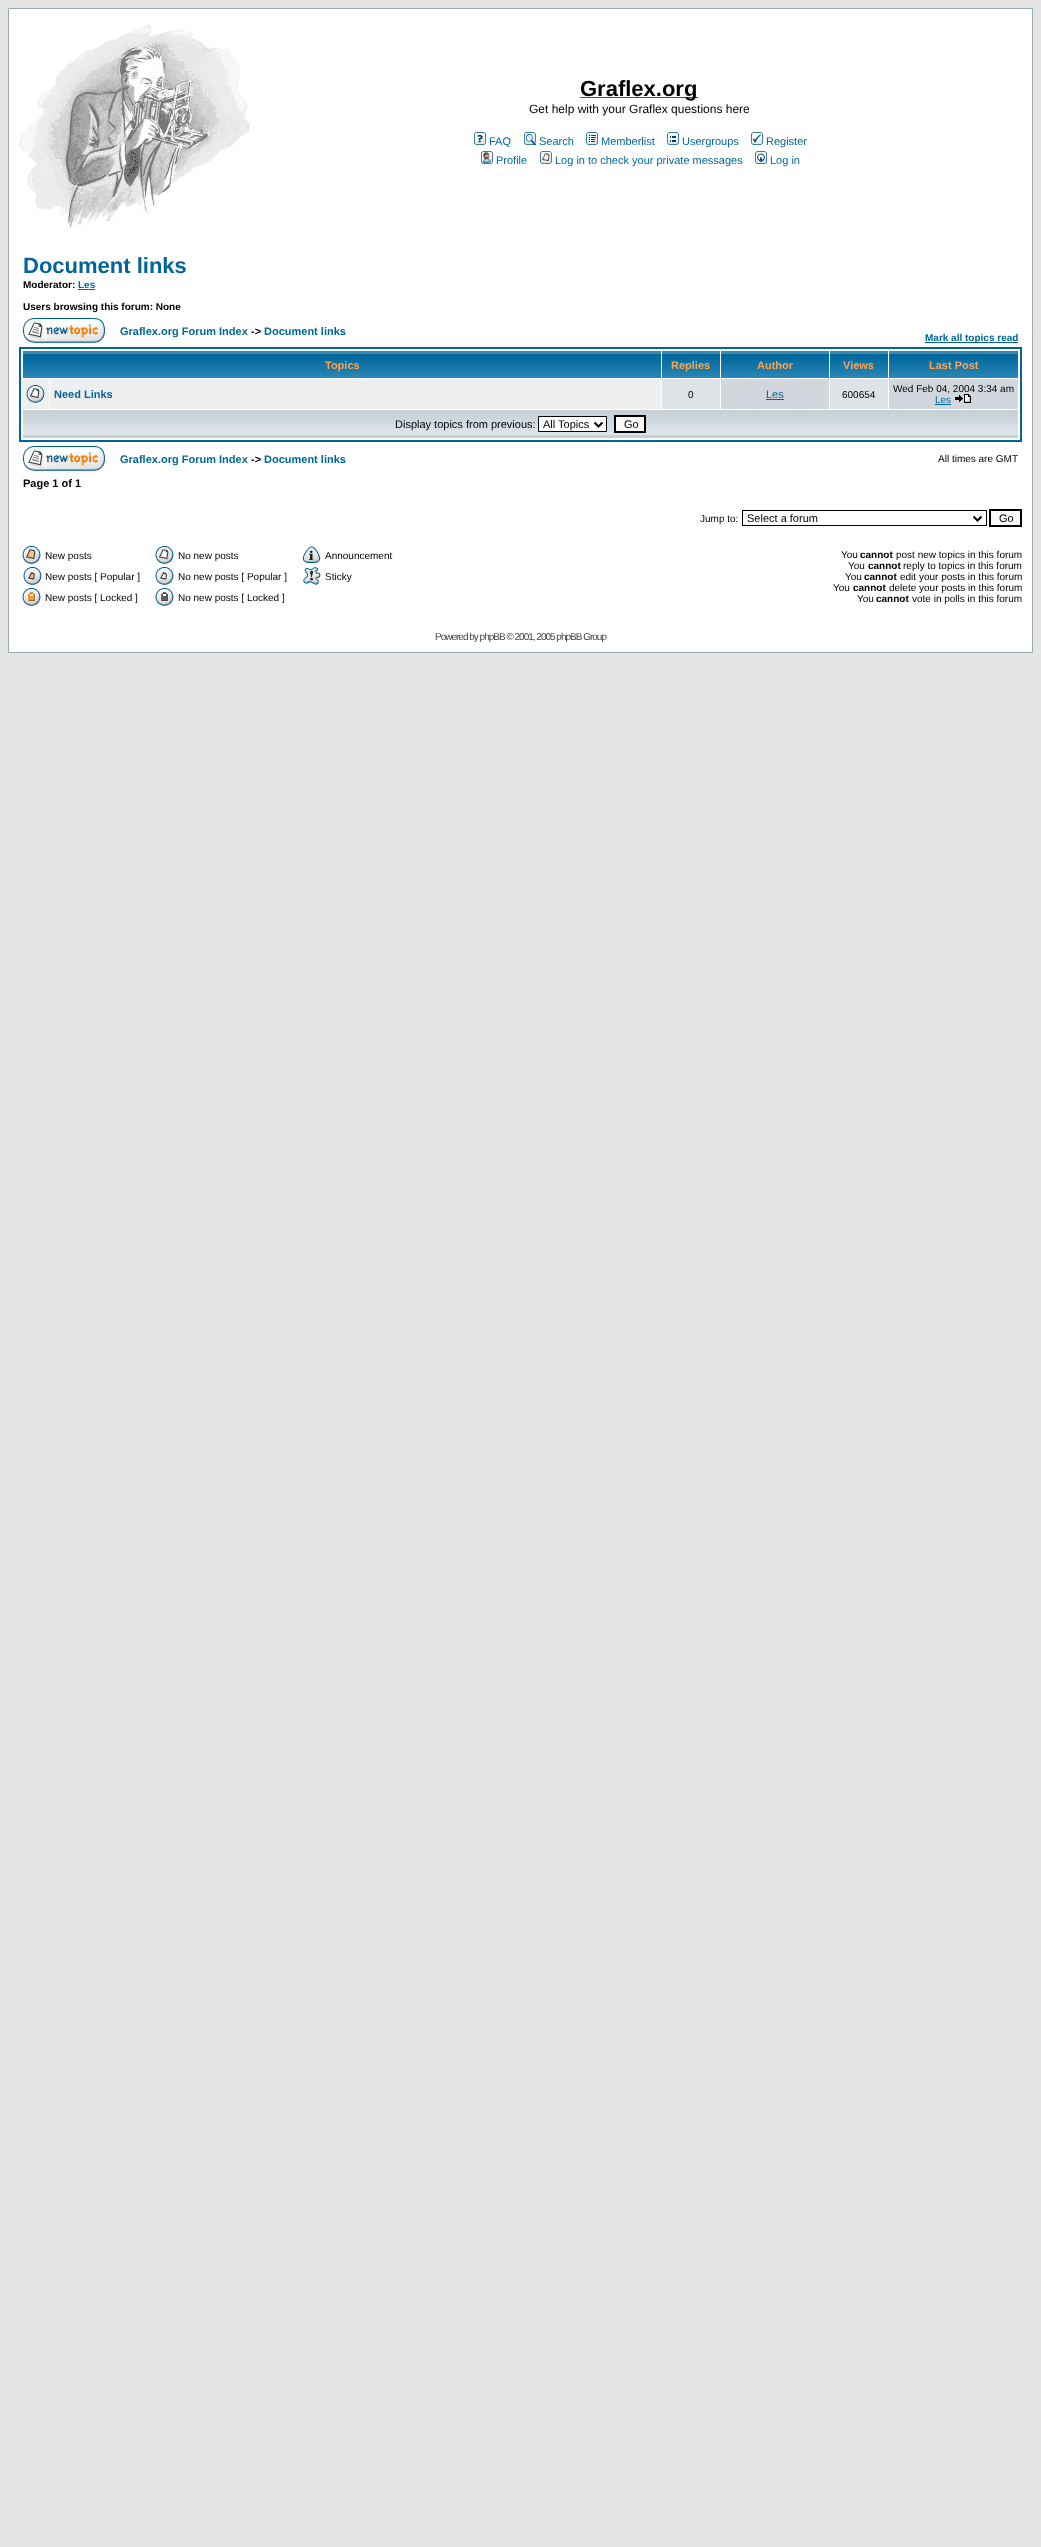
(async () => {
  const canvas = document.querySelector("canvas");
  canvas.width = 1041;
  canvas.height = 2547;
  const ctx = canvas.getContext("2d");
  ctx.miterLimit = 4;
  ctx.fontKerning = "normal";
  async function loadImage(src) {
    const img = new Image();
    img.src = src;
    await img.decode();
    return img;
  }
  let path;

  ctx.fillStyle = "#e5e5e5";
  ctx.fillRect(0, 0, 1041, 2547);
  ctx.fillStyle = "#ffffff";
  ctx.beginPath();
  ctx.rect(8.5, 8.5, 1024, 644);
  ctx.fill();
  ctx.strokeStyle = "#98aab1";
  ctx.stroke();
  ctx.drawImage(await loadImage("img/1.png"), 19, 24, 232, 204);
  ctx.fillStyle = "#006699";
  ctx.fillRect(580, 97, 118, 1);
  ctx.drawImage(await loadImage("img/2.png"), 474, 132, 12, 13);
  ctx.drawImage(await loadImage("img/3.png"), 524, 132, 12, 13);
  ctx.drawImage(await loadImage("img/4.png"), 586, 132, 12, 13);
  ctx.drawImage(await loadImage("img/5.png"), 667, 132, 12, 13);
  ctx.drawImage(await loadImage("img/6.png"), 751, 132, 12, 13);
  ctx.drawImage(await loadImage("img/7.png"), 481, 151, 12, 13);
  ctx.drawImage(await loadImage("img/8.png"), 540, 151, 12, 13);
  ctx.drawImage(await loadImage("img/9.png"), 755, 151, 12, 13);
  ctx.fillRect(78, 289, 17, 1);
  ctx.drawImage(await loadImage("img/10.png"), 23, 318, 82, 25);
  ctx.fillRect(925, 342, 93, 1);
  ctx.strokeStyle = "#006699";
  ctx.lineWidth = 2;
  ctx.strokeRect(20, 348, 1001, 93);
  ctx.drawImage(await loadImage("img/11.png"), 23, 351, 638, 27);
  ctx.drawImage(await loadImage("img/12.png"), 662, 351, 58, 27);
  ctx.drawImage(await loadImage("img/13.png"), 721, 351, 108, 27);
  ctx.drawImage(await loadImage("img/12.png"), 830, 351, 58, 27);
  ctx.drawImage(await loadImage("img/14.png"), 889, 351, 129, 27);
  ctx.fillStyle = "#efefef";
  ctx.fillRect(22, 379, 27, 30);
  ctx.drawImage(await loadImage("img/15.png"), 26, 385, 19, 18);
  for (const [x, y, w, h, color] of [
    [50, 379, 611, 30, "#efefef"],
    [662, 379, 58, 30, "#dee3e7"],
    [721, 379, 108, 30, "#d1d7dc"],
    [766, 399, 18, 1, "#006699"],
    [830, 379, 58, 30, "#dee3e7"],
    [889, 379, 129, 30, "#d1d7dc"],
    [935, 404, 16, 1, "#006699"],
  ]) {
    ctx.fillStyle = color;
    ctx.fillRect(x, y, w, h);
  }
  ctx.drawImage(await loadImage("img/16.png"), 955, 394, 16, 9);
  ctx.drawImage(await loadImage("img/17.png"), 23, 410, 995, 28);
  ctx.fillStyle = "#ffffff";
  ctx.beginPath();
  ctx.rect(538.5, 416.5, 68, 15);
  ctx.fill();
  ctx.strokeStyle = "#000000";
  ctx.lineWidth = 1;
  ctx.stroke();
  path = new Path2D("M594.5 422.5L598.5 426.5L602.5 422.5");
  ctx.lineWidth = 2;
  ctx.stroke(path);
  ctx.fillStyle = "#fafafa";
  ctx.beginPath();
  ctx.rect(615, 416, 30, 16);
  ctx.fill();
  ctx.stroke();
  ctx.drawImage(await loadImage("img/10.png"), 23, 446, 82, 25);
  ctx.lineWidth = 1;
  ctx.strokeRect(742.5, 510.5, 244, 15);
  path = new Path2D("M973.5 516.5L977.5 520.5L981.5 516.5");
  ctx.lineWidth = 2;
  ctx.stroke(path);
  ctx.beginPath();
  ctx.rect(990, 510, 31, 16);
  ctx.fill();
  ctx.stroke();
  ctx.drawImage(await loadImage("img/18.png"), 22, 546, 19, 18);
  ctx.drawImage(await loadImage("img/19.png"), 155, 546, 19, 18);
  ctx.drawImage(await loadImage("img/20.png"), 302, 546, 19, 17);
  ctx.drawImage(await loadImage("img/21.png"), 23, 567, 19, 18);
  ctx.drawImage(await loadImage("img/22.png"), 155, 567, 19, 18);
  ctx.drawImage(await loadImage("img/23.png"), 303, 567, 18, 18);
  ctx.drawImage(await loadImage("img/24.png"), 22, 588, 19, 18);
  ctx.drawImage(await loadImage("img/25.png"), 155, 588, 19, 18);
  ctx.font = "bold 22px Liberation Sans";
  ctx.fillStyle = "#000000";
  ctx.fillText("Graflex.org", 580, 96);
  ctx.font = "12px Liberation Sans";
  ctx.fillText("Get help with your Graflex questions here", 529, 113);
  ctx.font = "11px Liberation Sans";
  ctx.fillStyle = "#006699";
  for (const [text, x, y] of [
    ["FAQ", 489, 145],
    ["Search", 539, 145],
    ["Memberlist", 601, 145],
    ["Usergroups", 682, 145],
    ["Register", 766, 145],
    ["Profile", 496, 164],
    ["Log in to check your private messages", 555, 164],
    ["Log in", 770, 164],
  ]) {
    ctx.fillText(text, x, y);
  }
  ctx.font = "bold 22px Liberation Sans";
  ctx.fillText("Document links", 23, 273);
  ctx.font = "bold 10px Liberation Sans";
  ctx.fillStyle = "#000000";
  ctx.fillText("Moderator:", 23, 288);
  ctx.fillStyle = "#006699";
  ctx.fillText("Les", 78, 288);
  ctx.fillStyle = "#000000";
  ctx.fillText("Users browsing this forum: None", 23, 310);
  ctx.font = "bold 11px Liberation Sans";
  ctx.fillStyle = "#006699";
  ctx.fillText("Graflex.org Forum Index", 120, 335);
  ctx.fillStyle = "#000000";
  ctx.fillText("->", 251, 335);
  ctx.fillStyle = "#006699";
  ctx.fillText("Document links", 264, 335);
  ctx.font = "bold 10px Liberation Sans";
  ctx.fillText("Mark all topics read", 925, 341);
  ctx.font = "bold 11px Liberation Sans";
  ctx.fillStyle = "#ffa34f";
  for (const [text, x, y] of [
    ["Topics", 325, 369],
    ["Replies", 671, 369],
    ["Author", 757, 369],
    ["Views", 843, 369],
    ["Last Post", 929, 369],
  ]) {
    ctx.fillText(text, x, y);
  }
  ctx.fillStyle = "#006699";
  ctx.fillText("Need Links", 54, 398);
  ctx.font = "10px Liberation Sans";
  ctx.fillStyle = "#000000";
  ctx.fillText("0", 688, 398);
  ctx.font = "11px Liberation Sans";
  ctx.fillStyle = "#006699";
  ctx.fillText("Les", 766, 398);
  ctx.font = "10px Liberation Sans";
  ctx.fillStyle = "#000000";
  ctx.fillText("600654", 842, 398);
  ctx.fillText("Wed Feb 04, 2004 3:34 am", 893, 392);
  ctx.fillStyle = "#006699";
  ctx.fillText("Les", 935, 403);
  ctx.font = "11px Liberation Sans";
  ctx.fillStyle = "#000000";
  for (const [text, x, y] of [
    ["Display topics from previous:", 395, 428],
    ["All Topics", 543, 428],
    ["Go", 624, 428],
  ]) {
    ctx.fillText(text, x, y);
  }
  ctx.font = "bold 11px Liberation Sans";
  ctx.fillStyle = "#006699";
  ctx.fillText("Graflex.org Forum Index", 120, 463);
  ctx.fillStyle = "#000000";
  ctx.fillText("->", 251, 463);
  ctx.fillStyle = "#006699";
  ctx.fillText("Document links", 264, 463);
  ctx.font = "10px Liberation Sans";
  ctx.fillStyle = "#000000";
  ctx.fillText("All times are GMT", 938, 462);
  ctx.font = "bold 11px Liberation Sans";
  ctx.fillText("Page 1 of 1", 23, 487);
  ctx.font = "10px Liberation Sans";
  ctx.fillText("Jump to:", 700, 522);
  ctx.font = "11px Liberation Sans";
  ctx.fillText("Select a forum", 747, 522);
  ctx.fillText("Go", 999, 522);
  ctx.font = "10px Liberation Sans";
  for (const [text, x, y] of [
    ["New posts", 45, 559],
    ["No new posts", 178, 559],
    ["Announcement", 325, 559],
    ["New posts [ Popular ]", 45, 580],
    ["No new posts [ Popular ]", 178, 580],
    ["Sticky", 325, 580],
    ["New posts [ Locked ]", 45, 601],
    ["No new posts [ Locked ]", 178, 601],
    ["You", 841, 558],
  ]) {
    ctx.fillText(text, x, y);
  }
  ctx.font = "bold 10px Liberation Sans";
  ctx.fillText("cannot", 860, 558);
  ctx.font = "10px Liberation Sans";
  ctx.fillText("post new topics in this forum", 896, 558);
  ctx.fillText("You", 848, 569);
  ctx.font = "bold 10px Liberation Sans";
  ctx.fillText("cannot", 868, 569);
  ctx.font = "10px Liberation Sans";
  ctx.fillText("reply to topics in this forum", 903, 569);
  ctx.fillText("You", 845, 580);
  ctx.font = "bold 10px Liberation Sans";
  ctx.fillText("cannot", 864, 580);
  ctx.font = "10px Liberation Sans";
  ctx.fillText("edit your posts in this forum", 900, 580);
  ctx.fillText("You", 833, 591);
  ctx.font = "bold 10px Liberation Sans";
  ctx.fillText("cannot", 853, 591);
  ctx.font = "10px Liberation Sans";
  ctx.fillText("delete your posts in this forum", 889, 591);
  ctx.fillText("You", 857, 602);
  ctx.font = "bold 10px Liberation Sans";
  ctx.fillText("cannot", 876, 602);
  ctx.font = "10px Liberation Sans";
  ctx.fillText("vote in polls in this forum", 912, 602);
  ctx.letterSpacing = "-1px";
  ctx.fillStyle = "#444444";
  ctx.fillText("Powered by phpBB © 2001, 2005 phpBB Group", 435, 640);
})();
